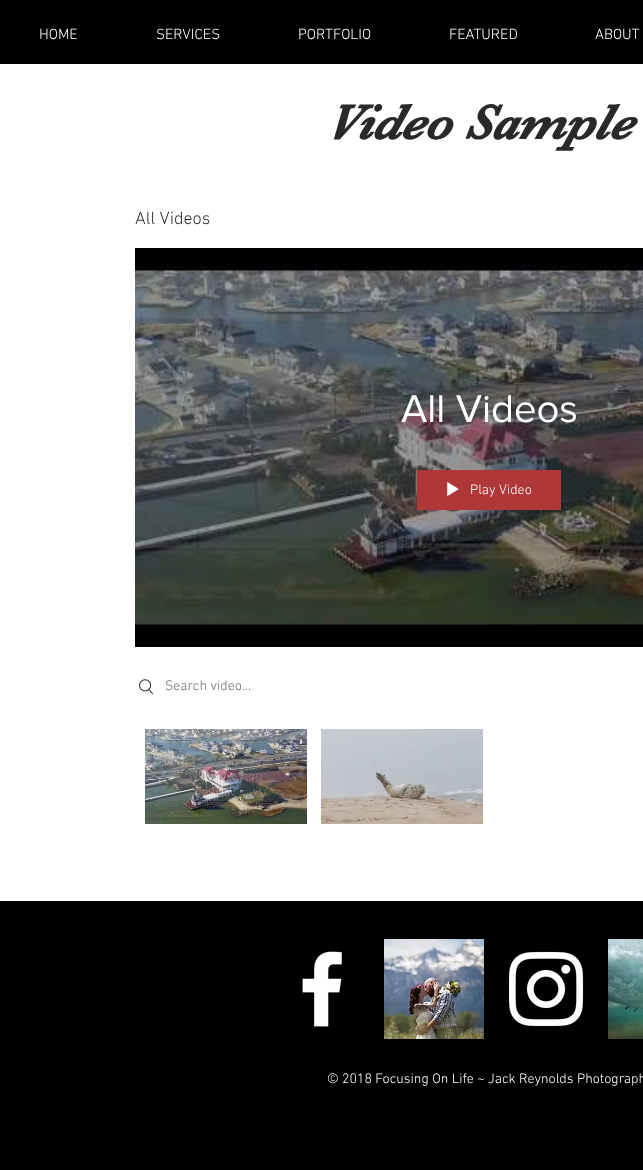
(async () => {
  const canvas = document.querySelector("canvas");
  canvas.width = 643;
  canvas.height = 1170;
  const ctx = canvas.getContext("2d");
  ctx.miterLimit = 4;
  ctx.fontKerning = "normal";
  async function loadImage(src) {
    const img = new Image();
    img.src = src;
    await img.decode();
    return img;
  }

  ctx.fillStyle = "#000000";
  ctx.fillRect(0, 0, 643, 1170);
  ctx.fillStyle = "#ffffff";
  ctx.fillRect(0, 64, 643, 837);
  ctx.fillStyle = "#000000";
  ctx.fillRect(135, 248, 508, 399);
  ctx.drawImage(await loadImage("img/1.png"), 135, 626, 508, 1);
  ctx.drawImage(await loadImage("img/2.png"), 135, 264, 508, 362);
  ctx.fillStyle = "#b03737";
  ctx.fillRect(417, 470, 144, 40);
  ctx.drawImage(await loadImage("img/3.png"), 447, 482, 12, 14);
  ctx.drawImage(await loadImage("img/4.png"), 139, 679, 14, 16);
  ctx.drawImage(await loadImage("img/5.png"), 145, 818, 162, 6);
  ctx.drawImage(await loadImage("img/6.png"), 145, 729, 162, 89);
  ctx.drawImage(await loadImage("img/7.png"), 321, 729, 162, 42);
  ctx.drawImage(await loadImage("img/8.png"), 321, 771, 162, 53);
  ctx.drawImage(await loadImage("img/9.png"), 302, 951, 40, 76);
  ctx.drawImage(await loadImage("img/10.png"), 384, 939, 100, 100);
  ctx.drawImage(await loadImage("img/11.png"), 508, 951, 76, 76);
  ctx.drawImage(await loadImage("img/12.png"), 608, 939, 35, 100);
  ctx.font = "300 15px 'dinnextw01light'";
  ctx.fillStyle = "#ffffff";
  for (const [text, x, y] of [
    ["HOME", 39, 39],
    ["SERVICES", 156, 39],
    ["PORTFOLIO", 298, 39],
    ["FEATURED", 449, 39],
    ["ABOUT", 595, 39],
  ]) {
    ctx.fillText(text, x, y);
  }
  ctx.font = "italic bold 50px 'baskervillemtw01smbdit'";
  ctx.fillStyle = "#292929";
  ctx.fillText("Video Sample", 325, 139);
  ctx.font = "300 18px 'dinnextw01light'";
  ctx.fillStyle = "#2f2e2e";
  ctx.fillText("All Videos", 135, 224);
  ctx.font = "40px 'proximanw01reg'";
  ctx.fillStyle = "#ffffff";
  ctx.fillText("All Videos", 401, 422);
  ctx.font = "300 14px 'dinnextw01light'";
  ctx.fillText("Play Video", 470, 494);
  ctx.fillStyle = "#6d6d6d";
  ctx.fillText("Search video...", 165, 690);
  ctx.fillStyle = "#88777e";
  ctx.fillText("Now Playing", 189, 780);
  ctx.fillStyle = "#ffffff";
  ctx.fillText("© 2018 Focusing On Life ~ Jack Reynolds Photograph", 327, 1083);
})();
